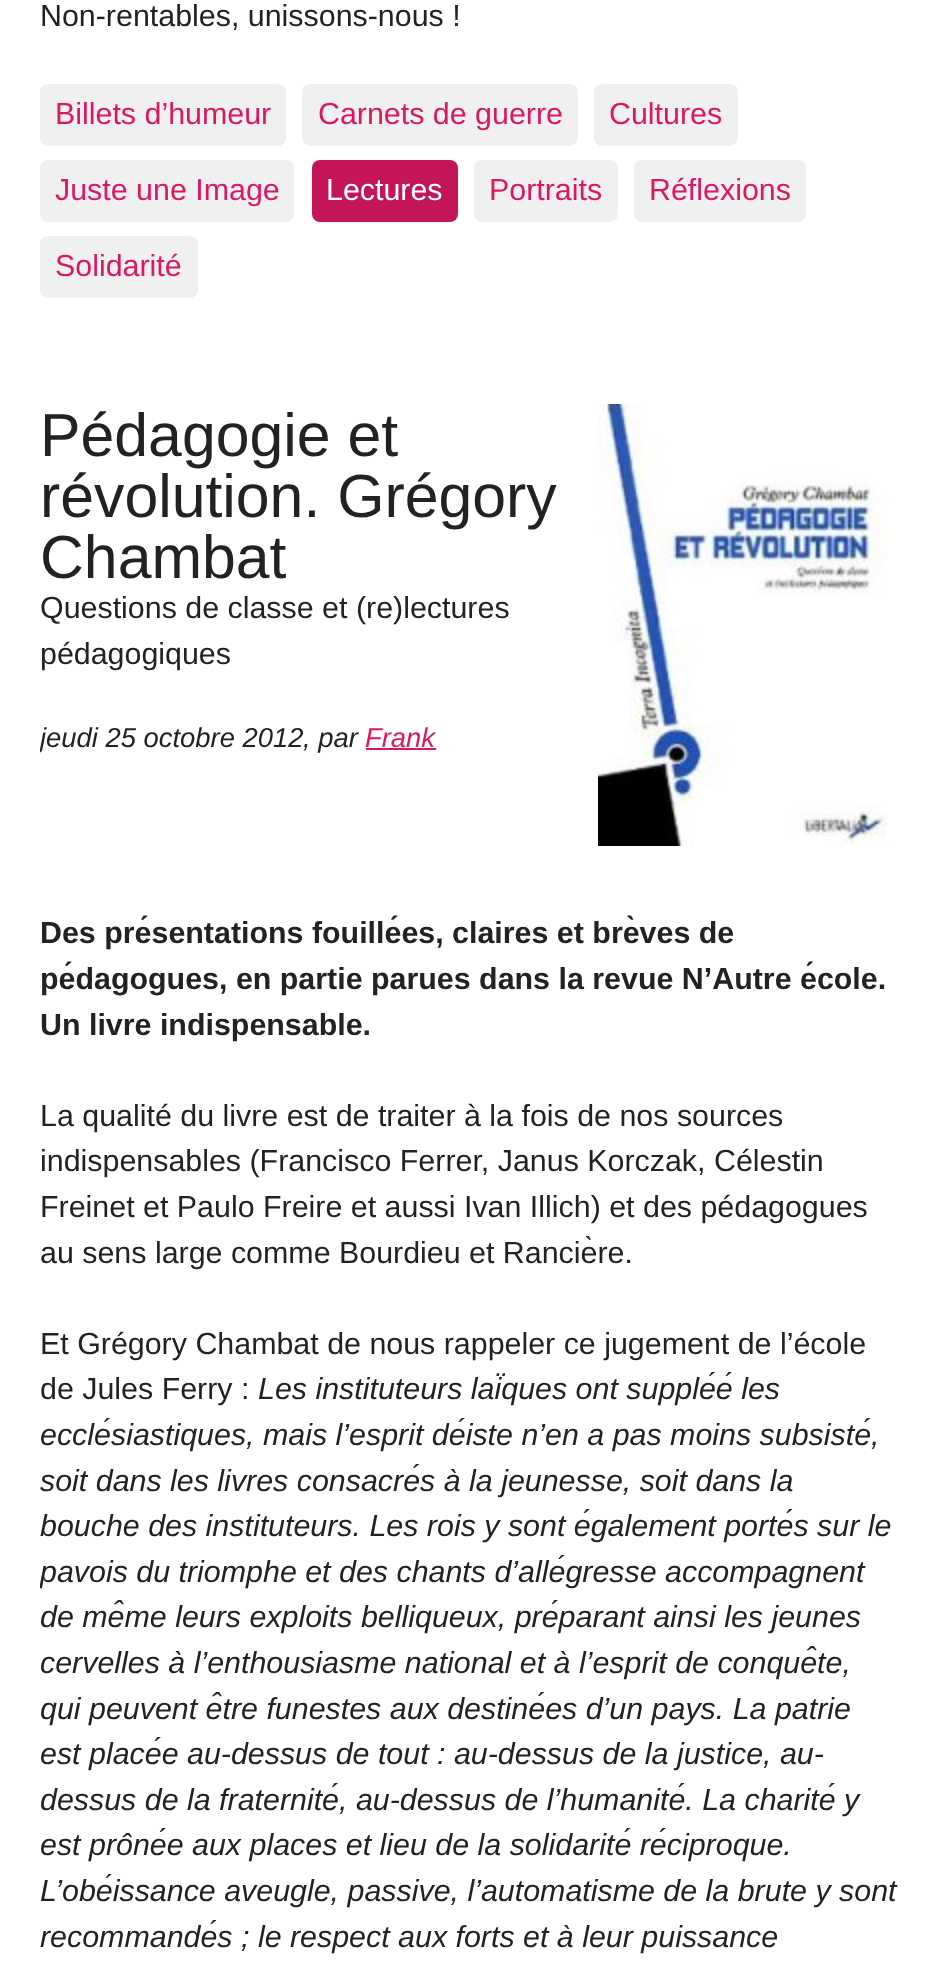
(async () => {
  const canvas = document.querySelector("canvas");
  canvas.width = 937;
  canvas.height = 1961;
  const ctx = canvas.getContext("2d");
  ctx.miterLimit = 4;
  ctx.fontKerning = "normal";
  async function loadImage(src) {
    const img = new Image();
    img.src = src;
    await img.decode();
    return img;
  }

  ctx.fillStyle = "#ffffff";
  ctx.fillRect(0, 0, 937, 1961);
  ctx.fillStyle = "#f0f0f0";
  ctx.beginPath();
  ctx.roundRect(40, 84, 246, 62, 8);
  ctx.fill();
  ctx.beginPath();
  ctx.roundRect(302, 84, 276, 62, 8);
  ctx.fill();
  ctx.beginPath();
  ctx.roundRect(594, 84, 144, 62, 8);
  ctx.fill();
  ctx.beginPath();
  ctx.roundRect(40, 160, 254, 62, 8);
  ctx.fill();
  ctx.fillStyle = "#c41558";
  ctx.beginPath();
  ctx.roundRect(312, 160, 146, 62, 8);
  ctx.fill();
  ctx.fillStyle = "#f0f0f0";
  ctx.beginPath();
  ctx.roundRect(474, 160, 144, 62, 8);
  ctx.fill();
  ctx.beginPath();
  ctx.roundRect(634, 160, 172, 62, 8);
  ctx.fill();
  ctx.beginPath();
  ctx.roundRect(40, 236, 158, 62, 8);
  ctx.fill();
  ctx.drawImage(await loadImage("img/1.png"), 598, 404, 289, 442);
  ctx.fillStyle = "#db1762";
  ctx.fillRect(366, 748, 70, 2);
  ctx.font = "30.4px Liberation Sans";
  ctx.fillStyle = "#222222";
  ctx.fillText("Non-rentables, unissons-nous !", 40, 26);
  ctx.fillStyle = "#db1762";
  for (const [text, x, y] of [
    ["Billets d’humeur", 55, 124],
    ["Carnets de guerre", 318, 124],
    ["Cultures", 609, 124],
    ["Juste une Image", 55, 200],
  ]) {
    ctx.fillText(text, x, y);
  }
  ctx.fillStyle = "#ffffff";
  ctx.fillText("Lectures", 326, 200);
  ctx.fillStyle = "#db1762";
  for (const [text, x, y] of [
    ["Portraits", 489, 200],
    ["Réflexions", 649, 200],
    ["Solidarité", 55, 276],
  ]) {
    ctx.fillText(text, x, y);
  }
  ctx.font = "60.75px Liberation Sans";
  ctx.fillStyle = "#222222";
  for (const [text, x, y] of [
    ["Pédagogie et", 40, 456],
    ["révolution. Grégory", 40, 517],
    ["Chambat", 40, 578],
  ]) {
    ctx.fillText(text, x, y);
  }
  ctx.font = "30.4px Liberation Sans";
  ctx.fillText("Questions de classe et (re)lectures", 40, 618);
  ctx.fillText("pédagogiques", 40, 664);
  ctx.save();
  ctx.beginPath();
  ctx.rect(40, 404, 858, 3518);
  ctx.clip();
  ctx.font = "italic 27.4px Liberation Sans";
  ctx.fillText("jeudi 25 octobre 2012", 40, 747);
  ctx.restore();
  ctx.font = "italic 27.4px Liberation Sans";
  ctx.fillText(", par", 303, 747);
  ctx.fillStyle = "#db1762";
  ctx.fillText("Frank", 365, 747);
  ctx.font = "bold 30.4px Liberation Sans";
  ctx.fillStyle = "#222222";
  for (const [text, x, y] of [
    ["Des présentations fouillées, claires et brèves de", 40, 943],
    ["pédagogues, en partie parues dans la revue N’Autre école.", 40, 989],
    ["Un livre indispensable.", 40, 1035],
  ]) {
    ctx.fillText(text, x, y);
  }
  ctx.font = "30.4px Liberation Sans";
  for (const [text, x, y] of [
    ["La qualité du livre est de traiter à la fois de nos sources", 40, 1126],
    ["indispensables (Francisco Ferrer, Janus Korczak, Célestin", 40, 1171],
    ["Freinet et Paulo Freire et aussi Ivan Illich) et des pédagogues", 40, 1217],
    ["au sens large comme Bourdieu et Rancière.", 40, 1263],
    ["Et Grégory Chambat de nous rappeler ce jugement de l’école", 40, 1354],
    ["de Jules Ferry :", 40, 1399],
  ]) {
    ctx.fillText(text, x, y);
  }
  ctx.font = "italic 30.4px Liberation Sans";
  for (const [text, x, y] of [
    ["Les instituteurs laïques ont suppléé les", 258, 1399],
    ["ecclésiastiques, mais l’esprit déiste n’en a pas moins subsisté,", 40, 1445],
    ["soit dans les livres consacrés à la jeunesse, soit dans la", 40, 1491],
    ["bouche des instituteurs. Les rois y sont également portés sur le", 40, 1536],
  ]) {
    ctx.fillText(text, x, y);
  }
  ctx.save();
  ctx.beginPath();
  ctx.rect(40, 404, 858, 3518);
  ctx.clip();
  ctx.fillText("pavois du triomphe et des chants d’allégresse accompagnent", 40, 1582);
  ctx.restore();
  for (const [text, x, y] of [
    ["de même leurs exploits belliqueux, préparant ainsi les jeunes", 40, 1627],
    ["cervelles à l’enthousiasme national et à l’esprit de conquête,", 40, 1673],
    ["qui peuvent être funestes aux destinées d’un pays. La patrie", 40, 1719],
    ["est placée au-dessus de tout : au-dessus de la justice, au-", 40, 1764],
    ["dessus de la fraternité, au-dessus de l’humanité. La charité y", 40, 1810],
    ["est prônée aux places et lieu de la solidarité réciproque.", 40, 1855],
    ["L’obéissance aveugle, passive, l’automatisme de la brute y sont", 40, 1901],
    ["recommandés ; le respect aux forts et à leur puissance", 40, 1947],
  ]) {
    ctx.fillText(text, x, y);
  }
})();
